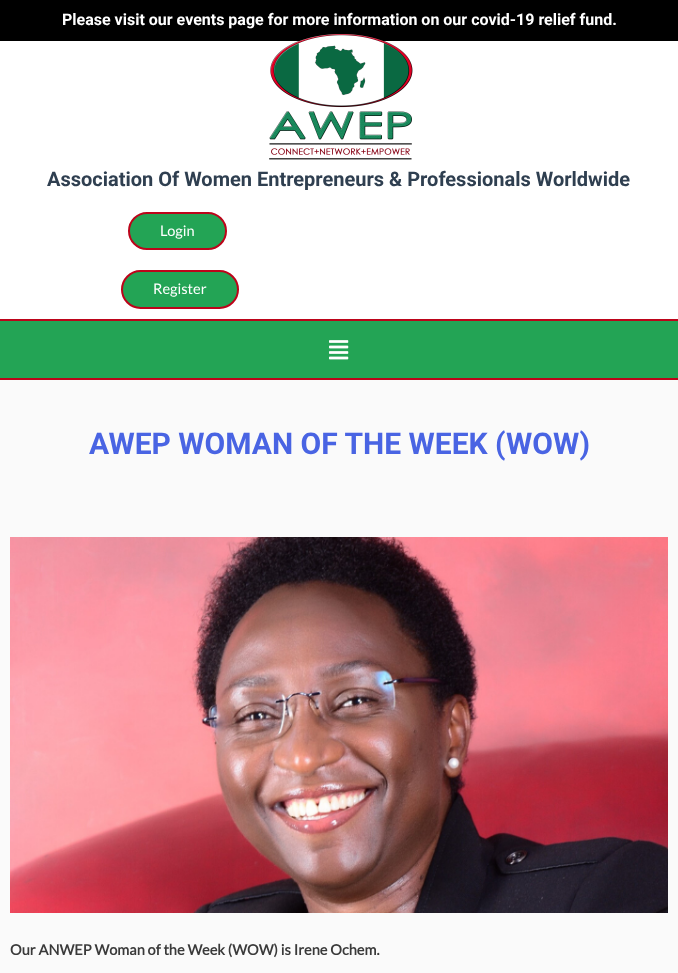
(async () => {
  const canvas = document.querySelector("canvas");
  canvas.width = 678;
  canvas.height = 973;
  const ctx = canvas.getContext("2d");
  ctx.miterLimit = 4;
  ctx.fontKerning = "normal";
  async function loadImage(src) {
    const img = new Image();
    img.src = src;
    await img.decode();
    return img;
  }

  ctx.fillStyle = "#fafafa";
  ctx.fillRect(0, 0, 678, 973);
  ctx.fillStyle = "#000000";
  ctx.fillRect(0, 0, 678, 41);
  ctx.fillStyle = "#ffffff";
  ctx.fillRect(0, 41, 678, 278);
  ctx.drawImage(await loadImage("img/1.png"), 269, 34, 144, 126);
  ctx.fillStyle = "#23a455";
  ctx.beginPath();
  ctx.roundRect(129, 213, 97, 36, 18);
  ctx.fill();
  ctx.strokeStyle = "#bc041a";
  ctx.lineWidth = 2;
  ctx.stroke();
  ctx.beginPath();
  ctx.roundRect(122, 271, 116, 37, 18.5);
  ctx.fill();
  ctx.stroke();
  for (const [x, y, w, h, color] of [
    [0, 321, 678, 57, "#23a455"],
    [0, 319, 678, 2, "#bc041a"],
    [0, 378, 678, 2, "#bc041a"],
  ]) {
    ctx.fillStyle = color;
    ctx.fillRect(x, y, w, h);
  }
  ctx.drawImage(await loadImage("img/2.png"), 329, 340, 20, 20);
  ctx.drawImage(await loadImage("img/3.png"), 10, 537, 658, 376);
  ctx.font = "bold 16px Roboto";
  ctx.fillStyle = "#ffffff";
  ctx.fillText("Please visit our events page for more information on our covid-19 relief fund.", 62, 25);
  ctx.font = "bold 20px Roboto";
  ctx.fillStyle = "#2f3f50";
  ctx.fillText("Association Of Women Entrepreneurs & Professionals Worldwide", 47, 186);
  ctx.font = "14.6px Lato";
  ctx.fillStyle = "#ffffff";
  ctx.fillText("Login", 160, 236);
  ctx.fillText("Register", 153, 294);
  ctx.font = "bold 30px Roboto";
  ctx.fillStyle = "#4964e3";
  ctx.fillText("AWEP WOMAN OF THE WEEK (WOW)", 89, 454);
  ctx.font = "bold 14.6px Lato";
  ctx.fillStyle = "#3a3a3a";
  ctx.fillText("Our ANWEP Woman of the Week (WOW) is Irene Ochem.", 10, 955);
})();
